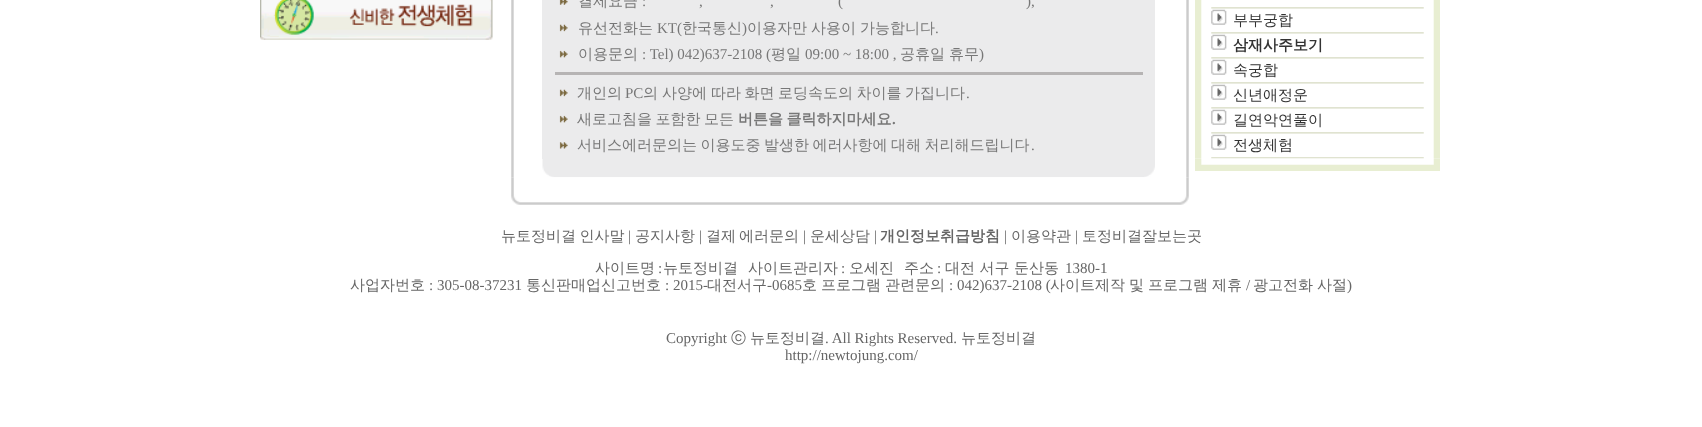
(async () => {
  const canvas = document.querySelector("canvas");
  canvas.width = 1702;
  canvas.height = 427;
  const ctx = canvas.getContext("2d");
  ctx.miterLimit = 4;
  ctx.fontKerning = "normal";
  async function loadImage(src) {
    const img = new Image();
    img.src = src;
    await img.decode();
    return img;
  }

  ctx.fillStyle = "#ffffff";
  ctx.fillRect(0, 0, 1702, 427);
  ctx.drawImage(await loadImage("img/1.png"), 260, 0, 233, 40);
  ctx.drawImage(await loadImage("img/2.png"), 511, 0, 678, 178);
  ctx.fillStyle = "#ebebec";
  ctx.fillRect(542, 0, 613, 159);
  ctx.drawImage(await loadImage("img/3.png"), 559, 0, 9, 5);
  ctx.drawImage(await loadImage("img/4.png"), 559, 24, 9, 8);
  ctx.drawImage(await loadImage("img/5.png"), 559, 50, 9, 8);
  ctx.fillStyle = "#b6b4b4";
  ctx.fillRect(555, 72, 588, 3);
  ctx.drawImage(await loadImage("img/4.png"), 559, 89, 9, 8);
  ctx.drawImage(await loadImage("img/5.png"), 559, 115, 9, 8);
  ctx.drawImage(await loadImage("img/6.png"), 559, 142, 9, 7);
  ctx.drawImage(await loadImage("img/7.png"), 542, 159, 613, 19);
  ctx.drawImage(await loadImage("img/8.png"), 511, 177, 678, 28);
  ctx.drawImage(await loadImage("img/9.png"), 1195, 0, 245, 159);
  ctx.drawImage(await loadImage("img/10.png"), 1211, 7, 213, 2);
  ctx.drawImage(await loadImage("img/11.png"), 1211, 9, 16, 16);
  ctx.drawImage(await loadImage("img/10.png"), 1211, 32, 213, 2);
  ctx.drawImage(await loadImage("img/11.png"), 1211, 34, 16, 16);
  ctx.drawImage(await loadImage("img/10.png"), 1211, 57, 213, 2);
  ctx.drawImage(await loadImage("img/11.png"), 1211, 59, 16, 16);
  ctx.drawImage(await loadImage("img/10.png"), 1211, 82, 213, 2);
  ctx.drawImage(await loadImage("img/11.png"), 1211, 84, 16, 16);
  ctx.drawImage(await loadImage("img/10.png"), 1211, 107, 213, 2);
  ctx.drawImage(await loadImage("img/11.png"), 1211, 109, 16, 16);
  ctx.drawImage(await loadImage("img/10.png"), 1211, 132, 213, 2);
  ctx.drawImage(await loadImage("img/11.png"), 1211, 134, 16, 16);
  ctx.drawImage(await loadImage("img/10.png"), 1211, 157, 213, 2);
  ctx.drawImage(await loadImage("img/12.png"), 1195, 158, 245, 13);
  ctx.font = "500 15px WenQuanYi Zen Hei";
  ctx.fillStyle = "#777777";
  ctx.fillText("결제요금", 578, 6);
  ctx.font = "15px Liberation Serif";
  for (const [text, x, y] of [
    [":", 642, 6],
    [",", 699, 6],
    [",", 770, 6],
    ["(", 838, 6],
    ["),", 1026, 6],
  ]) {
    ctx.fillText(text, x, y);
  }
  ctx.font = "500 15px WenQuanYi Zen Hei";
  ctx.fillText("유선전화는", 578, 33);
  ctx.font = "15px Liberation Serif";
  ctx.fillText("KT(", 657, 33);
  ctx.font = "500 15px WenQuanYi Zen Hei";
  ctx.fillText("한국통신", 682, 33);
  ctx.font = "15px Liberation Serif";
  ctx.fillText(")", 742, 33);
  ctx.wordSpacing = "-0.5px";
  ctx.font = "500 15px WenQuanYi Zen Hei";
  ctx.fillText("이용자만 사용이 가능합니다", 747, 33);
  ctx.wordSpacing = "0px";
  ctx.font = "15px Liberation Serif";
  ctx.fillText(".", 935, 33);
  ctx.font = "500 15px WenQuanYi Zen Hei";
  ctx.fillText("이용문의", 578, 59);
  ctx.font = "15px Liberation Serif";
  ctx.fillText(": Tel) 042)637-2108 (", 642, 59);
  ctx.font = "500 15px WenQuanYi Zen Hei";
  ctx.fillText("평일", 771, 59);
  ctx.font = "15px Liberation Serif";
  ctx.fillText("09:00 ~ 18:00 ,", 805, 59);
  ctx.font = "500 15px WenQuanYi Zen Hei";
  ctx.fillText("공휴일", 900, 59);
  ctx.fillText("휴무", 949, 59);
  ctx.font = "15px Liberation Serif";
  ctx.fillText(")", 979, 59);
  ctx.font = "500 15px WenQuanYi Zen Hei";
  ctx.fillText("개인의", 577, 98);
  ctx.font = "15px Liberation Serif";
  ctx.fillText("PC", 625, 98);
  ctx.wordSpacing = "-0.5px";
  ctx.font = "500 15px WenQuanYi Zen Hei";
  ctx.fillText("의 사양에", 643, 98);
  ctx.wordSpacing = "-1px";
  ctx.fillText("따라 화면 로딩속도의 차이를 가집니다", 711, 98);
  ctx.wordSpacing = "0px";
  ctx.font = "15px Liberation Serif";
  ctx.fillText(".", 966, 98);
  ctx.wordSpacing = "-1px";
  ctx.font = "500 15px WenQuanYi Zen Hei";
  ctx.fillText("새로고침을 포함한 모든", 577, 124);
  ctx.font = "bold 15px WenQuanYi Zen Hei";
  ctx.fillText("버튼을 클릭하지마세요", 738, 124);
  ctx.wordSpacing = "0px";
  ctx.font = "bold 15px Liberation Serif";
  ctx.fillText(".", 892, 124);
  ctx.wordSpacing = "-1px";
  ctx.font = "500 15px WenQuanYi Zen Hei";
  ctx.fillText("서비스에러문의는 이용도중", 577, 150);
  ctx.fillText("발생한 에러사항에 대해 처리해드립니다", 764, 150);
  ctx.wordSpacing = "0px";
  ctx.font = "15px Liberation Serif";
  ctx.fillText(".", 1031, 150);
  ctx.font = "500 15px WenQuanYi Zen Hei";
  ctx.fillStyle = "#333333";
  ctx.fillText("부부궁합", 1233, 25);
  ctx.font = "bold 15px WenQuanYi Zen Hei";
  ctx.fillText("삼재사주보기", 1233, 50);
  ctx.font = "500 15px WenQuanYi Zen Hei";
  for (const [text, x, y] of [
    ["속궁합", 1233, 75],
    ["신년애정운", 1233, 100],
    ["길연악연풀이", 1233, 125],
    ["전생체험", 1233, 150],
  ]) {
    ctx.fillText(text, x, y);
  }
  ctx.wordSpacing = "-1px";
  ctx.fillStyle = "#666666";
  ctx.fillText("뉴토정비결 인사말", 501, 241);
  ctx.wordSpacing = "0px";
  ctx.font = "15px Liberation Serif";
  ctx.fillText("|", 628, 241);
  ctx.font = "500 15px WenQuanYi Zen Hei";
  ctx.fillText("공지사항", 635, 241);
  ctx.font = "15px Liberation Serif";
  ctx.fillText("|", 699, 241);
  ctx.font = "500 15px WenQuanYi Zen Hei";
  ctx.fillText("결제", 706, 241);
  ctx.fillText("에러문의", 739, 241);
  ctx.font = "15px Liberation Serif";
  ctx.fillText("|", 803, 241);
  ctx.font = "500 15px WenQuanYi Zen Hei";
  ctx.fillText("운세상담", 810, 241);
  ctx.font = "15px Liberation Serif";
  ctx.fillText("|", 874, 241);
  ctx.font = "bold 15px WenQuanYi Zen Hei";
  ctx.fillText("개인정보취급방침", 880, 241);
  ctx.font = "15px Liberation Serif";
  ctx.fillText("|", 1004, 241);
  ctx.font = "500 15px WenQuanYi Zen Hei";
  ctx.fillText("이용약관", 1011, 241);
  ctx.font = "15px Liberation Serif";
  ctx.fillText("|", 1075, 241);
  ctx.font = "500 15px WenQuanYi Zen Hei";
  ctx.fillText("토정비결잘보는곳", 1082, 241);
  ctx.fillText("사이트명", 595, 273);
  ctx.font = "15px Liberation Serif";
  ctx.fillText(":", 658, 273);
  ctx.font = "500 15px WenQuanYi Zen Hei";
  ctx.fillText("뉴토정비결", 663, 273);
  ctx.fillText("사이트관리자", 748, 273);
  ctx.font = "15px Liberation Serif";
  ctx.fillText(":", 841, 273);
  ctx.font = "500 15px WenQuanYi Zen Hei";
  ctx.fillText("오세진", 849, 273);
  ctx.fillText("주소", 904, 273);
  ctx.font = "15px Liberation Serif";
  ctx.fillText(":", 937, 273);
  ctx.font = "500 15px WenQuanYi Zen Hei";
  ctx.fillText("대전 서구 둔산동", 945, 273);
  ctx.font = "15px Liberation Serif";
  ctx.fillText("1380-1", 1065, 273);
  ctx.font = "500 15px WenQuanYi Zen Hei";
  ctx.fillText("사업자번호", 350, 290);
  ctx.font = "15px Liberation Serif";
  ctx.fillText(": 305-08-37231", 429, 290);
  ctx.font = "500 15px WenQuanYi Zen Hei";
  ctx.fillText("통신판매업신고번호", 526, 290);
  ctx.font = "15px Liberation Serif";
  ctx.fillText(": 2015-", 665, 290);
  ctx.font = "500 15px WenQuanYi Zen Hei";
  ctx.fillText("대전서구", 707, 290);
  ctx.font = "15px Liberation Serif";
  ctx.fillText("-0685", 767, 290);
  ctx.font = "500 15px WenQuanYi Zen Hei";
  for (const [text, x, y] of [
    ["호", 802, 290],
    ["프로그램", 821, 290],
    ["관련문의", 885, 290],
  ]) {
    ctx.fillText(text, x, y);
  }
  ctx.font = "15px Liberation Serif";
  ctx.fillText(": 042)637-2108 (", 949, 290);
  ctx.wordSpacing = "-0.5px";
  ctx.font = "500 15px WenQuanYi Zen Hei";
  ctx.fillText("사이트제작 및 프로그램 제휴", 1050, 290);
  ctx.wordSpacing = "0px";
  ctx.font = "15px Liberation Serif";
  ctx.fillText("/", 1246, 290);
  ctx.wordSpacing = "-0.5px";
  ctx.font = "500 15px WenQuanYi Zen Hei";
  ctx.fillText("광고전화 사절", 1253, 290);
  ctx.wordSpacing = "0px";
  ctx.font = "15px Liberation Serif";
  ctx.fillText(")", 1347, 290);
  ctx.fillText("Copyright", 666, 343);
  ctx.font = "500 15px WenQuanYi Zen Hei";
  ctx.fillText("ⓒ", 731, 343);
  ctx.fillText("뉴토정비결", 750, 343);
  ctx.font = "15px Liberation Serif";
  ctx.fillText(". All Rights Reserved.", 825, 343);
  ctx.font = "500 15px WenQuanYi Zen Hei";
  ctx.fillText("뉴토정비결", 961, 343);
  ctx.font = "15px Liberation Serif";
  ctx.fillText("http://newtojung.com/", 785, 360);
})();
